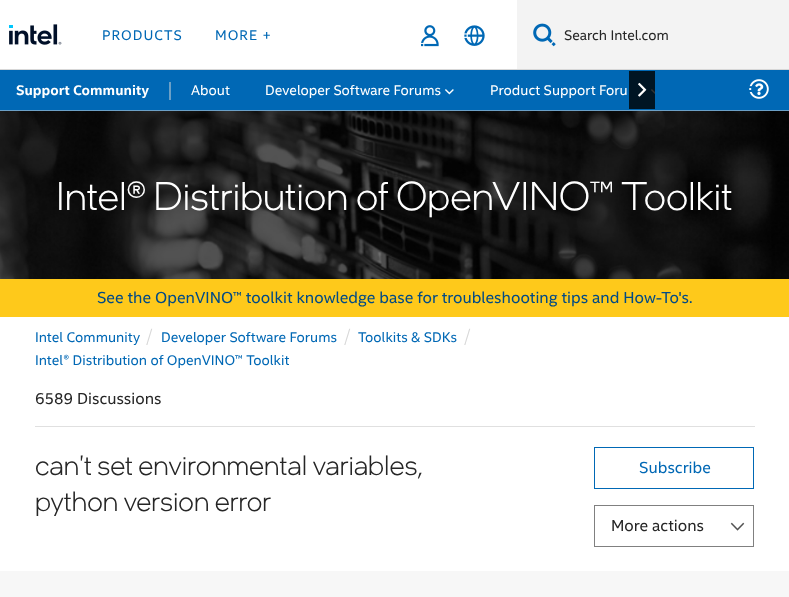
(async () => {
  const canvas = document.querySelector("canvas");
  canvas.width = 789;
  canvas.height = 597;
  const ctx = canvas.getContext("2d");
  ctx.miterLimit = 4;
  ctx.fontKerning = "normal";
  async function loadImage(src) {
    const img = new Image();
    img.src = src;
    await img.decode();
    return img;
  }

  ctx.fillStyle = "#f7f7f7";
  ctx.fillRect(0, 0, 789, 597);
  ctx.fillStyle = "#ffffff";
  ctx.fillRect(0, 0, 517, 69);
  ctx.fillStyle = "#d7d7d7";
  ctx.fillRect(0, 69, 789, 1);
  ctx.drawImage(await loadImage("img/1.png"), 9, 24, 53, 21);
  ctx.drawImage(await loadImage("img/2.png"), 421, 25, 18, 22);
  ctx.drawImage(await loadImage("img/3.png"), 464, 25, 21, 21);
  ctx.fillStyle = "#f3f3f3";
  ctx.fillRect(517, 0, 272, 69);
  ctx.drawImage(await loadImage("img/4.png"), 533, 23, 23, 24);
  ctx.fillStyle = "#0068b5";
  ctx.fillRect(0, 70, 789, 40);
  ctx.fillStyle = "#6ca0c6";
  ctx.fillRect(169, 82, 2, 18);
  ctx.drawImage(await loadImage("img/5.png"), 445, 89, 9, 6);
  ctx.drawImage(await loadImage("img/6.png"), 651, 89, 4, 5);
  ctx.fillStyle = "rgba(0, 0, 0, 0.8)";
  ctx.fillRect(629, 71, 26, 38);
  ctx.drawImage(await loadImage("img/7.png"), 638, 82, 9, 15);
  ctx.drawImage(await loadImage("img/8.png"), 749, 79, 20, 20);
  ctx.drawImage(await loadImage("img/9.png"), 0, 111, 789, 168);
  for (const [x, y, w, h, color] of [
    [0, 110, 789, 1, "#6ca0c6"],
    [0, 279, 789, 38, "#fec91b"],
    [0, 317, 789, 254, "#ffffff"],
    [35, 426, 720, 1, "#e0e0e0"],
  ]) {
    ctx.fillStyle = color;
    ctx.fillRect(x, y, w, h);
  }
  ctx.strokeStyle = "#0068b5";
  ctx.strokeRect(594.5, 447.5, 159, 41);
  ctx.drawImage(await loadImage("img/10.png"), 730, 522, 15, 9);
  ctx.strokeStyle = "#808080";
  ctx.strokeRect(594.5, 505.5, 159, 41);
  ctx.letterSpacing = "1px";
  ctx.font = "14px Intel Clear";
  ctx.fillStyle = "#0068b5";
  ctx.fillText("PRODUCTS", 102, 40);
  ctx.fillText("MORE +", 215, 40);
  ctx.letterSpacing = "0px";
  ctx.fillStyle = "#262626";
  ctx.fillText("Search Intel.com", 564, 40);
  ctx.font = "bold 14px Intel Clear";
  ctx.fillStyle = "#ffffff";
  ctx.fillText("Support Community", 16, 95);
  ctx.font = "14px Intel Clear";
  for (const [text, x, y] of [
    ["About", 191, 95],
    ["Developer Software Forums", 265, 95],
    ["Product Support Foru", 490, 95],
  ]) {
    ctx.fillText(text, x, y);
  }
  ctx.font = "300 40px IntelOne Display";
  ctx.fillText("Intel® Distribution of OpenVINO™ Toolkit", 56, 210);
  ctx.font = "16px Intel Clear";
  ctx.fillStyle = "#004a86";
  ctx.fillText("See the OpenVINO™ toolkit knowledge base for troubleshooting tips and How-To's.", 97, 303);
  ctx.font = "14px Intel Clear";
  ctx.fillStyle = "#0068b5";
  ctx.fillText("Intel Community", 35, 342);
  ctx.font = "300 18px Intel Clear";
  ctx.fillStyle = "#d7d7d7";
  ctx.fillText("/", 146, 342);
  ctx.font = "14px Intel Clear";
  ctx.fillStyle = "#0068b5";
  ctx.fillText("Developer Software Forums", 161, 342);
  ctx.font = "300 18px Intel Clear";
  ctx.fillStyle = "#d7d7d7";
  ctx.fillText("/", 344, 342);
  ctx.font = "14px Intel Clear";
  ctx.fillStyle = "#0068b5";
  ctx.fillText("Toolkits & SDKs", 358, 342);
  ctx.font = "300 18px Intel Clear";
  ctx.fillStyle = "#d7d7d7";
  ctx.fillText("/", 464, 342);
  ctx.font = "14px Intel Clear";
  ctx.fillStyle = "#0068b5";
  ctx.fillText("Intel® Distribution of OpenVINO™ Toolkit", 35, 365);
  ctx.font = "16px Intel Clear";
  ctx.fillStyle = "#262626";
  ctx.fillText("6589 Discussions", 35, 404);
  ctx.font = "300 28px IntelOne Display";
  ctx.fillText("can't set environmental variables,", 35, 475);
  ctx.fillText("python version error", 35, 511);
  ctx.font = "16px Intel Clear";
  ctx.fillStyle = "#0068b5";
  ctx.fillText("Subscribe", 639, 473);
  ctx.fillStyle = "#262626";
  ctx.fillText("More actions", 611, 531);
})();
